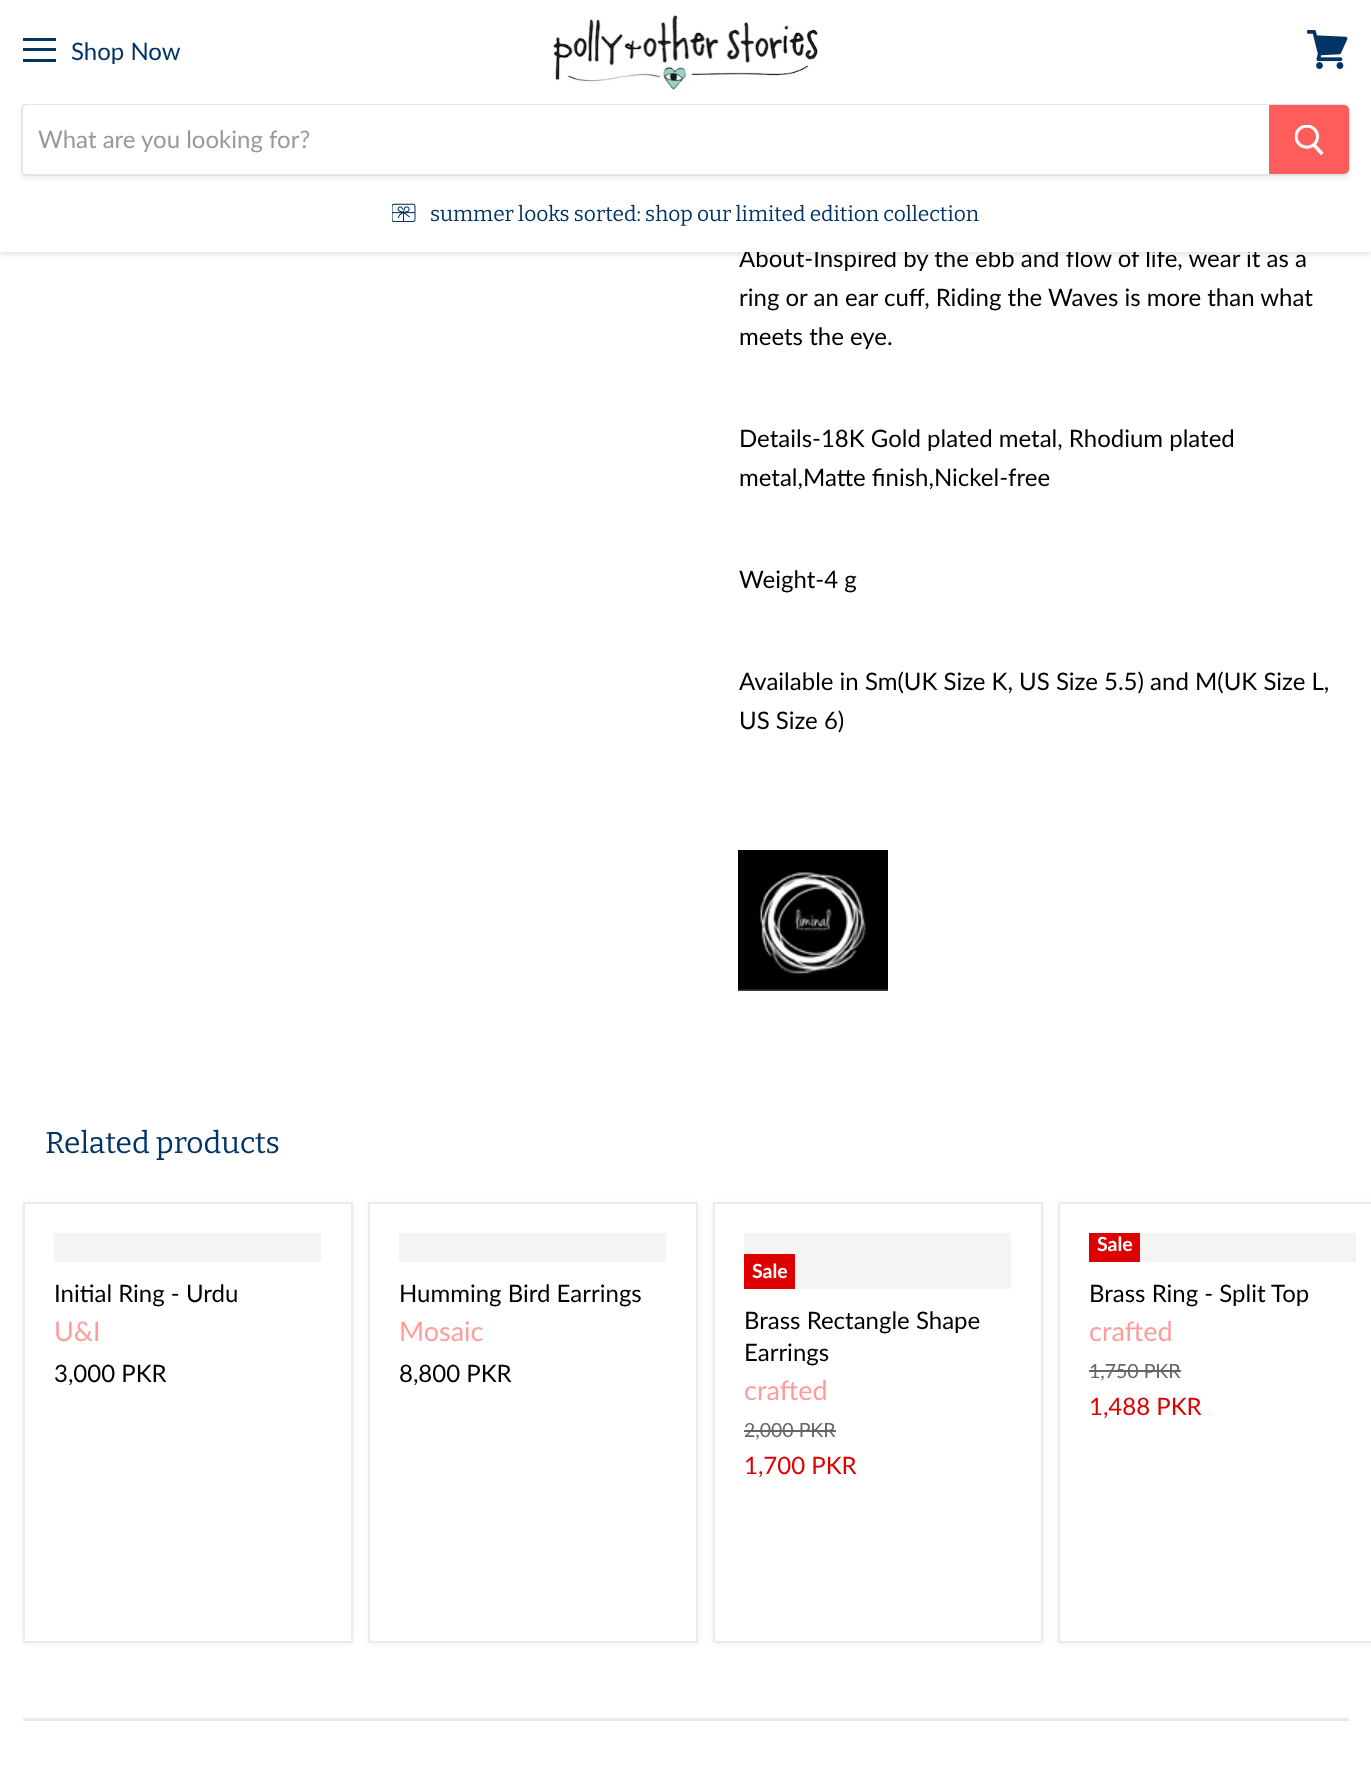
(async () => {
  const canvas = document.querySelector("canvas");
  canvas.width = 1371;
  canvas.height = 1770;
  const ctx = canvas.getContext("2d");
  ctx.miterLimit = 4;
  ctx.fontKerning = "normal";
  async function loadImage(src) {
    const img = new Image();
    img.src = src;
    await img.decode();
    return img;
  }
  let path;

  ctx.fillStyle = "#ffffff";
  ctx.fillRect(0, 0, 1371, 1770);
  ctx.fillStyle = "rgba(127, 127, 127, 0.25)";
  ctx.filter = "blur(3px)";
  ctx.beginPath();
  ctx.rect(0, 2, 1371, 252);
  ctx.fill();
  ctx.filter = "none";
  ctx.drawImage(await loadImage("img/5.png"), 738, 850, 150, 141);
  ctx.fillStyle = "rgba(127, 127, 127, 0.11)";
  ctx.filter = "blur(3px)";
  ctx.beginPath();
  ctx.rect(23, 1203, 330, 441);
  ctx.fill();
  ctx.filter = "none";
  ctx.fillStyle = "#ffffff";
  ctx.beginPath();
  ctx.rect(24, 1203, 328, 439);
  ctx.fill();
  ctx.strokeStyle = "#ebebeb";
  ctx.lineWidth = 2;
  ctx.stroke();
  ctx.fillStyle = "#f4f4f4";
  ctx.fillRect(54, 1233, 267, 29);
  ctx.fillStyle = "rgba(127, 127, 127, 0.11)";
  ctx.filter = "blur(3px)";
  ctx.beginPath();
  ctx.rect(368, 1203, 330, 441);
  ctx.fill();
  ctx.filter = "none";
  ctx.fillStyle = "#ffffff";
  ctx.beginPath();
  ctx.rect(369, 1203, 328, 439);
  ctx.fill();
  ctx.stroke();
  ctx.fillStyle = "#f4f4f4";
  ctx.fillRect(399, 1233, 267, 29);
  ctx.fillStyle = "rgba(127, 127, 127, 0.11)";
  ctx.filter = "blur(3px)";
  ctx.beginPath();
  ctx.rect(713, 1203, 330, 441);
  ctx.fill();
  ctx.filter = "none";
  ctx.fillStyle = "#ffffff";
  ctx.beginPath();
  ctx.rect(714, 1203, 328, 439);
  ctx.fill();
  ctx.stroke();
  for (const [x, y, w, h, color] of [
    [744, 1233, 267, 56, "#f4f4f4"],
    [744, 1254, 51, 35, "#de0101"],
    [744, 1430, 92, 2, "#666666"],
  ]) {
    ctx.fillStyle = color;
    ctx.fillRect(x, y, w, h);
  }
  ctx.fillStyle = "rgba(127, 127, 127, 0.11)";
  ctx.filter = "blur(3px)";
  ctx.beginPath();
  ctx.rect(1058, 1203, 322, 441);
  ctx.fill();
  ctx.filter = "none";
  ctx.fillStyle = "#ffffff";
  ctx.beginPath();
  ctx.rect(1059, 1203, 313, 439);
  ctx.fill();
  ctx.stroke();
  for (const [x, y, w, h, color] of [
    [1089, 1233, 51, 29, "#de0101"],
    [1140, 1233, 216, 29, "#f4f4f4"],
    [1089, 1370, 92, 2, "#666666"],
    [23, 1718, 1326, 3, "rgba(127, 127, 127, 0.16)"],
  ]) {
    ctx.fillStyle = color;
    ctx.fillRect(x, y, w, h);
  }
  ctx.font = "24px Lato";
  ctx.fillStyle = "#000000";
  ctx.fillText("About-Inspired by the ebb and flow of life, wear it as a", 739, 267);
  ctx.fillStyle = "#ffffff";
  ctx.fillRect(0, 0, 1371, 252);
  ctx.save();
  path = new Path2D("M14 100H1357V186H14ZM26 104H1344C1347.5 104 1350 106.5 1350 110V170C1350 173.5 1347.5 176 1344 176H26C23 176 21 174 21 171V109C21 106 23 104 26 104Z");
  ctx.clip(path, "evenodd");
  ctx.fillStyle = "rgba(127, 127, 127, 0.11)";
  ctx.filter = "blur(2px)";
  ctx.beginPath();
  ctx.roundRect(21, 107, 1329, 72, 6);
  ctx.fill();
  ctx.filter = "none";
  ctx.restore();
  ctx.beginPath();
  ctx.roundRect(22, 105, 1327, 70, [4, 5, 5, 4]);
  ctx.strokeStyle = "rgba(127, 127, 127, 0.2)";
  ctx.stroke();
  ctx.beginPath();
  ctx.roundRect(23, 105, 1246, 69, [5, 0, 0, 5]);
  ctx.fill();
  ctx.fillStyle = "#999999";
  ctx.fillText("What are you looking for?", 38, 148);
  ctx.fillStyle = "#ff5c5c";
  ctx.beginPath();
  ctx.roundRect(1270, 106, 78, 67, [0, 4, 4, 0]);
  ctx.fill();
  ctx.strokeStyle = "#ff5c5c";
  ctx.stroke();
  ctx.drawImage(await loadImage("img/3.png"), 1295, 125, 29, 31);
  ctx.drawImage(await loadImage("img/1.png"), 1307, 30, 41, 39);
  for (const [x, y, w, h, color] of [
    [23, 59, 33, 3, "#003366"],
    [23, 48, 33, 3, "#003366"],
    [23, 38, 33, 3, "#003366"],
  ]) {
    ctx.fillStyle = color;
    ctx.fillRect(x, y, w, h);
  }
  ctx.fillText("Shop Now", 71, 60);
  ctx.drawImage(await loadImage("img/4.png"), 392, 203, 24, 19);
  ctx.font = "21px Bitter";
  ctx.fillText("summer looks sorted: shop our limited edition collection", 430, 221);
  ctx.drawImage(await loadImage("img/2.png"), 553, 15, 265, 75);
  ctx.font = "24px Lato";
  ctx.fillStyle = "#000000";
  for (const [text, x, y] of [
    ["ring or an ear cuff, Riding the Waves is more than what", 739, 306],
    ["meets the eye.", 739, 345],
    ["Details-18K Gold plated metal, Rhodium plated", 739, 447],
    ["metal,Matte finish,Nickel-free", 739, 486],
    ["Weight-4 g", 739, 588],
    ["Available in Sm(UK Size K, US Size 5.5) and M(UK Size L,", 739, 690],
    ["US Size 6)", 739, 729],
  ]) {
    ctx.fillText(text, x, y);
  }
  ctx.font = "30px Bitter";
  ctx.fillStyle = "#003366";
  ctx.fillText("Related products", 45, 1153);
  ctx.font = "24px Lato";
  ctx.fillStyle = "#000000";
  ctx.fillText("Initial Ring - Urdu", 54, 1302);
  ctx.font = "27px Lato";
  ctx.fillStyle = "#ff9d9d";
  ctx.fillText("U&I", 54, 1341);
  ctx.font = "24px Lato";
  ctx.fillStyle = "#000000";
  ctx.fillText("3,000 PKR", 54, 1382);
  ctx.fillText("Humming Bird Earrings", 399, 1302);
  ctx.font = "27px Lato";
  ctx.fillStyle = "#ff9d9d";
  ctx.fillText("Mosaic", 399, 1341);
  ctx.font = "24px Lato";
  ctx.fillStyle = "#000000";
  ctx.fillText("8,800 PKR", 399, 1382);
  ctx.font = "bold 19.5px Lato";
  ctx.fillStyle = "#ffffff";
  ctx.fillText("Sale", 752, 1278);
  ctx.font = "24px Lato";
  ctx.fillStyle = "#000000";
  ctx.fillText("Brass Rectangle Shape", 744, 1329);
  ctx.fillText("Earrings", 744, 1361);
  ctx.font = "27px Lato";
  ctx.fillStyle = "#ff9d9d";
  ctx.fillText("crafted", 744, 1400);
  ctx.font = "19.5px Lato";
  ctx.fillStyle = "#666666";
  ctx.fillText("2,000 PKR", 744, 1437);
  ctx.font = "24px Lato";
  ctx.fillStyle = "#de0101";
  ctx.fillText("1,700 PKR", 744, 1474);
  ctx.font = "bold 19.5px Lato";
  ctx.fillStyle = "#ffffff";
  ctx.fillText("Sale", 1097, 1251);
  ctx.font = "24px Lato";
  ctx.fillStyle = "#000000";
  ctx.fillText("Brass Ring - Split Top", 1089, 1302);
  ctx.font = "27px Lato";
  ctx.fillStyle = "#ff9d9d";
  ctx.fillText("crafted", 1089, 1341);
  ctx.font = "19.5px Lato";
  ctx.fillStyle = "#666666";
  ctx.fillText("1,750 PKR", 1089, 1378);
  ctx.font = "24px Lato";
  ctx.fillStyle = "#de0101";
  ctx.fillText("1,488 PKR", 1089, 1415);
})();
